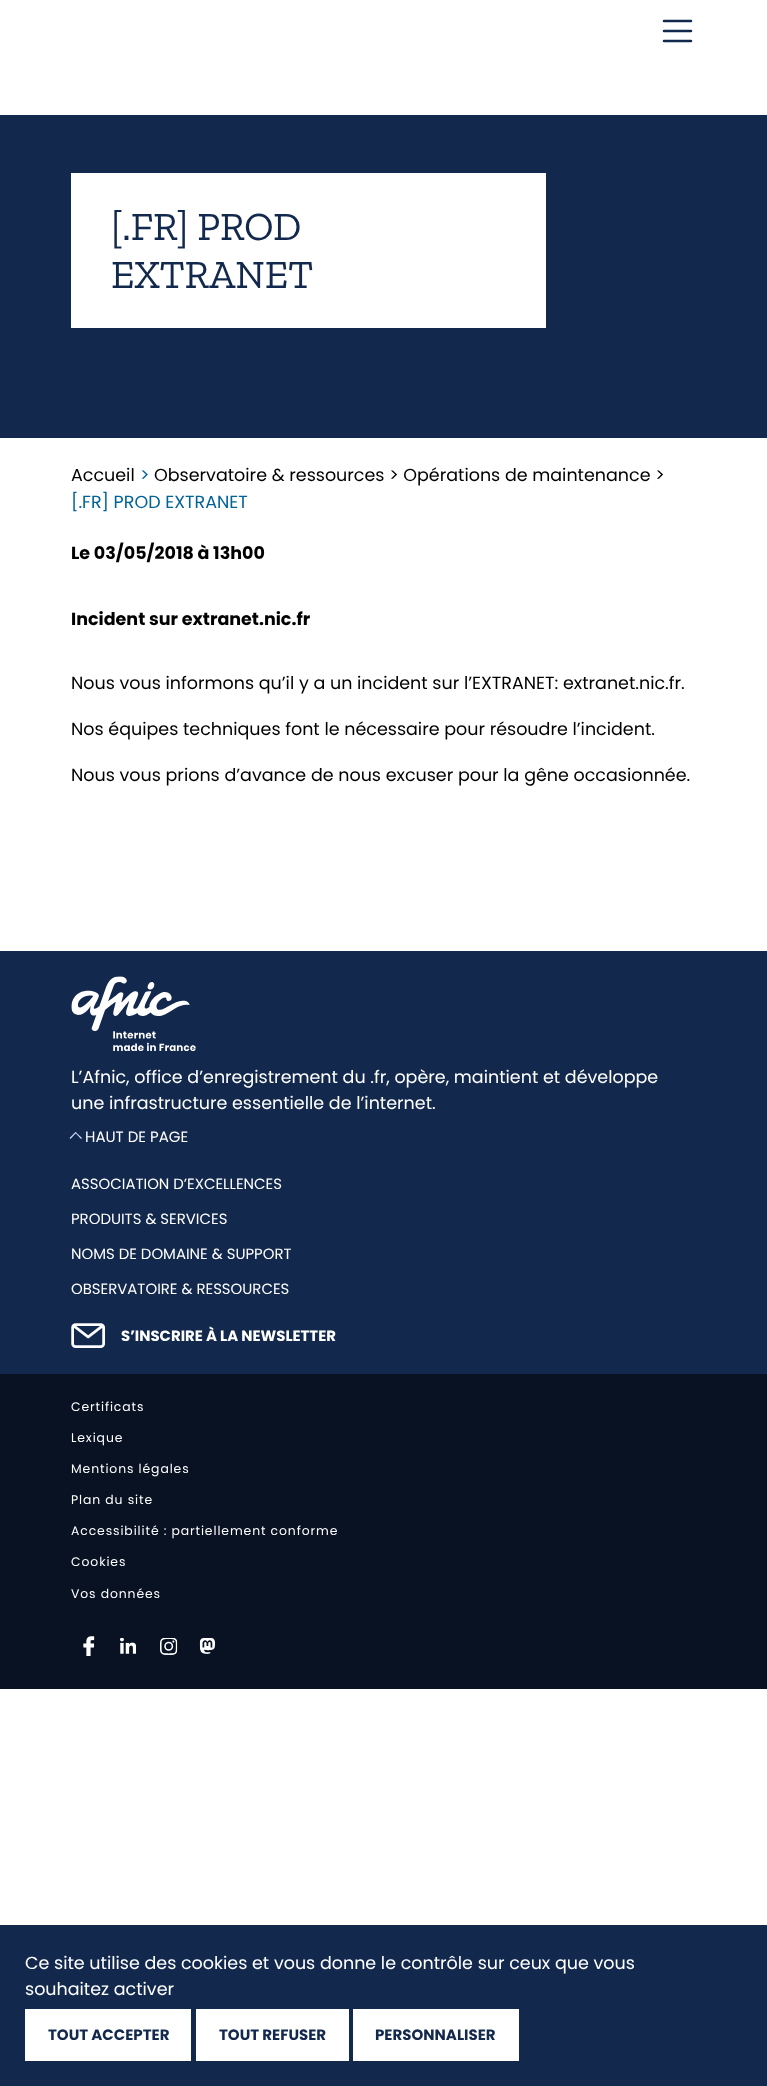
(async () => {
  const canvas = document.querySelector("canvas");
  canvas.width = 767;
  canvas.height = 2086;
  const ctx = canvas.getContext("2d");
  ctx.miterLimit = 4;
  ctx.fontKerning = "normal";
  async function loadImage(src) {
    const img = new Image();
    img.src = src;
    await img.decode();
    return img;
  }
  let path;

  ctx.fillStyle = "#ffffff";
  ctx.fillRect(0, 0, 767, 2086);
  path = new Path2D("M664 21H691M664 31H691M664 41H691");
  ctx.strokeStyle = "#12284c";
  ctx.lineWidth = 2.5;
  ctx.lineCap = "round";
  ctx.stroke(path);
  for (const [x, y, w, h, color] of [
    [0, 115, 767, 323, "#12284c"],
    [71, 173, 475, 155, "#ffffff"],
    [0, 951, 767, 423, "#12284c"],
  ]) {
    ctx.fillStyle = color;
    ctx.fillRect(x, y, w, h);
  }
  ctx.drawImage(await loadImage("img/1.png"), 71, 976, 125, 75);
  ctx.fillStyle = "#cfdaf7";
  path = new Path2D("M69.5 1138L75.5 1132L76.5 1132.5L70.5 1139Z");
  ctx.fill(path);
  path = new Path2D("M75 1132.5L75.5 1132L82 1138L81 1139Z");
  ctx.fill(path);
  ctx.drawImage(await loadImage("img/2.png"), 71, 1323, 34, 25);
  ctx.fillStyle = "#081223";
  ctx.fillRect(0, 1374, 767, 315);
  ctx.drawImage(await loadImage("img/3.png"), 83, 1636, 12, 20);
  ctx.drawImage(await loadImage("img/4.png"), 120, 1638, 16, 16);
  ctx.drawImage(await loadImage("img/5.png"), 160, 1638, 18, 17);
  ctx.drawImage(await loadImage("img/6.png"), 199, 1638, 16, 16);
  for (const [x, y, w, h, color] of [
    [0, 1925, 767, 161, "#12284c"],
    [25, 2009, 166, 52, "#ffffff"],
    [196, 2009, 153, 52, "#ffffff"],
    [353, 2009, 166, 52, "#ffffff"],
  ]) {
    ctx.fillStyle = color;
    ctx.fillRect(x, y, w, h);
  }
  ctx.font = "40px Zilla Slab";
  ctx.fillStyle = "#12284c";
  ctx.fillText("[.FR] PROD", 111, 240);
  ctx.fillText("EXTRANET", 111, 288);
  ctx.font = "17.5px Poppins";
  ctx.fillStyle = "#000000";
  ctx.fillText("Accueil", 71, 481);
  ctx.fillStyle = "#006398";
  ctx.fillText(">", 140, 481);
  ctx.fillStyle = "#000000";
  ctx.fillText("Observatoire & ressources > Opérations de maintenance >", 154, 481);
  ctx.fillStyle = "#006398";
  ctx.fillText("[.FR] PROD EXTRANET", 71, 508);
  ctx.font = "bold 17.5px Poppins";
  ctx.fillStyle = "#000000";
  ctx.fillText("Le 03/05/2018 à 13h00", 71, 559);
  ctx.fillText("Incident sur extranet.nic.fr", 71, 625);
  ctx.font = "17.5px Poppins";
  for (const [text, x, y] of [
    ["Nous vous informons qu’il y a un incident sur l’EXTRANET: extranet.nic.fr.", 71, 689],
    ["Nos équipes techniques font le nécessaire pour résoudre l’incident.", 71, 735],
    ["Nous vous prions d’avance de nous excuser pour la gêne occasionnée.", 71, 781],
  ]) {
    ctx.fillText(text, x, y);
  }
  ctx.fillStyle = "#ffffff";
  ctx.fillText("L’Afnic, office d’enregistrement du .fr, opère, maintient et développe", 71, 1083);
  ctx.fillText("une infrastructure essentielle de l’internet.", 71, 1109);
  ctx.font = "15px Poppins";
  ctx.fillText("HAUT DE PAGE", 85, 1142);
  ctx.font = "14.9px Poppins";
  for (const [text, x, y] of [
    ["ASSOCIATION D’EXCELLENCES", 71, 1189],
    ["PRODUITS & SERVICES", 71, 1224],
    ["NOMS DE DOMAINE & SUPPORT", 71, 1259],
    ["OBSERVATOIRE & RESSOURCES", 71, 1294],
  ]) {
    ctx.fillText(text, x, y);
  }
  ctx.font = "bold 14.9px Poppins";
  ctx.fillText("S’INSCRIRE À LA NEWSLETTER", 121, 1341);
  ctx.letterSpacing = "0.9px";
  ctx.font = "12.4px Poppins";
  for (const [text, x, y] of [
    ["Certificats", 71, 1411],
    ["Lexique", 71, 1442],
    ["Mentions légales", 71, 1473],
    ["Plan du site", 71, 1504],
    ["Accessibilité : partiellement conforme", 71, 1535],
    ["Cookies", 71, 1566],
    ["Vos données", 71, 1598],
  ]) {
    ctx.fillText(text, x, y);
  }
  ctx.letterSpacing = "0px";
  ctx.font = "17.5px Poppins";
  ctx.fillText("Ce site utilise des cookies et vous donne le contrôle sur ceux que vous", 25, 1969);
  ctx.fillText("souhaitez activer", 25, 1995);
  ctx.font = "bold 15px Poppins";
  ctx.fillStyle = "#12284c";
  for (const [text, x, y] of [
    ["TOUT ACCEPTER", 48, 2040],
    ["TOUT REFUSER", 219, 2040],
    ["PERSONNALISER", 375, 2040],
  ]) {
    ctx.fillText(text, x, y);
  }
})();
